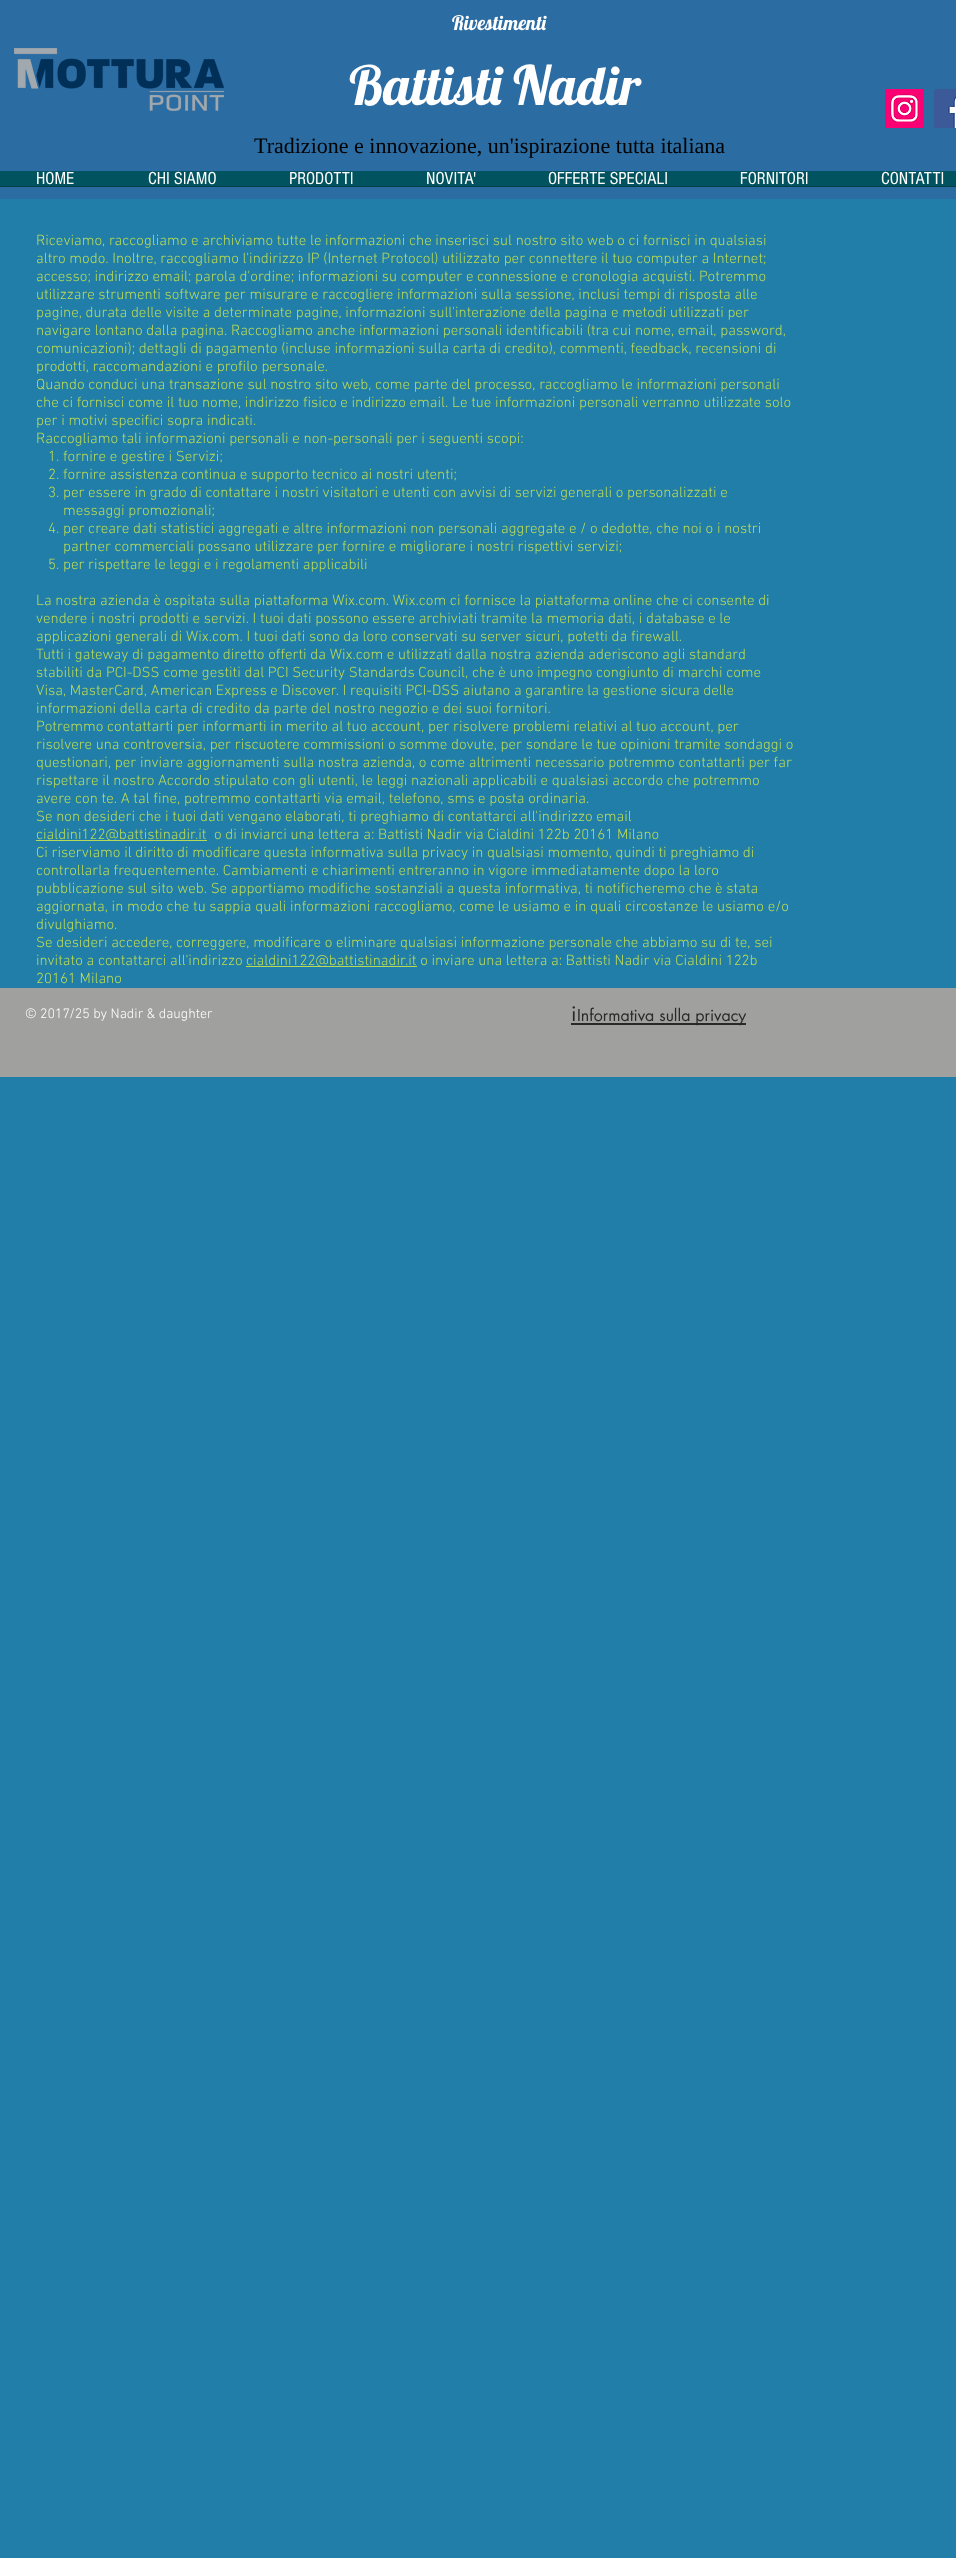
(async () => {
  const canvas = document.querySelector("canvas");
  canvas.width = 956;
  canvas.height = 2558;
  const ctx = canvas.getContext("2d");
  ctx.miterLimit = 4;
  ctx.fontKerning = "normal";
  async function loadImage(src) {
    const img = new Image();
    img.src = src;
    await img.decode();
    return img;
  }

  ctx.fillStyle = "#207ea9";
  ctx.fillRect(0, 0, 956, 2558);
  ctx.fillStyle = "#2b6ca3";
  ctx.fillRect(0, 0, 956, 199);
  ctx.drawImage(await loadImage("img/1.png"), 14, 48, 210, 63);
  ctx.drawImage(await loadImage("img/2.png"), 885, 89, 39, 39);
  ctx.drawImage(await loadImage("img/3.png"), 934, 89, 22, 39);
  for (const [x, y, w, h, color] of [
    [0, 171, 956, 15, "#00535f"],
    [0, 186, 956, 1, "#003f44"],
    [36, 840, 171, 1, "#bada55"],
    [246, 966, 171, 1, "#bada55"],
    [0, 988, 956, 89, "#a0a09f"],
    [571, 1023, 175, 2, "#292929"],
  ]) {
    ctx.fillStyle = color;
    ctx.fillRect(x, y, w, h);
  }
  ctx.font = "20px Lobster";
  ctx.fillStyle = "#ffffff";
  ctx.fillText("Rivestimenti", 452, 30);
  ctx.font = "54px Lobster";
  ctx.fillText("Battisti Nadir", 349, 105);
  ctx.font = "22px Liberation Serif";
  ctx.fillStyle = "#000000";
  ctx.fillText("Tradizione e innovazione, un'ispirazione tutta italiana", 254, 153);
  ctx.font = "18px 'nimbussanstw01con'";
  ctx.fillStyle = "#ffffff";
  for (const [text, x, y] of [
    ["HOME", 36, 184],
    ["CHI SIAMO", 148, 184],
    ["PRODOTTI", 289, 184],
    ["NOVITA'", 426, 184],
    ["OFFERTE SPECIALI", 548, 184],
    ["FORNITORI", 740, 184],
    ["CONTATTI", 881, 184],
  ]) {
    ctx.fillText(text, x, y);
  }
  ctx.font = "300 15px 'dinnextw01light'";
  ctx.fillStyle = "#bada55";
  for (const [text, x, y] of [
    ["Riceviamo, raccogliamo e archiviamo tutte le informazioni che inserisci sul nostro sito web o ci fornisci in qualsiasi", 36, 245],
    ["altro modo. Inoltre, raccogliamo l'indirizzo IP (Internet Protocol) utilizzato per connettere il tuo computer a Internet;", 36, 263],
    ["accesso; indirizzo email; parola d'ordine; informazioni su computer e connessione e cronologia acquisti. Potremmo", 36, 281],
    ["utilizzare strumenti software per misurare e raccogliere informazioni sulla sessione, inclusi tempi di risposta alle", 36, 299],
    ["pagine, durata delle visite a determinate pagine, informazioni sull'interazione della pagina e metodi utilizzati per", 36, 317],
    ["navigare lontano dalla pagina. Raccogliamo anche informazioni personali identificabili (tra cui nome, email, password,", 36, 335],
    ["comunicazioni); dettagli di pagamento (incluse informazioni sulla carta di credito), commenti, feedback, recensioni di", 36, 353],
    ["prodotti, raccomandazioni e profilo personale.", 36, 371],
    ["Quando conduci una transazione sul nostro sito web, come parte del processo, raccogliamo le informazioni personali", 36, 389],
    ["che ci fornisci come il tuo nome, indirizzo fisico e indirizzo email. Le tue informazioni personali verranno utilizzate solo", 36, 407],
    ["per i motivi specifici sopra indicati.", 36, 425],
    ["Raccogliamo tali informazioni personali e non-personali per i seguenti scopi:", 36, 443],
    ["1. fornire e gestire i Servizi;", 48, 461],
    ["2. fornire assistenza continua e supporto tecnico ai nostri utenti;", 48, 479],
    ["3. per essere in grado di contattare i nostri visitatori e utenti con avvisi di servizi generali o personalizzati e", 48, 497],
    ["messaggi promozionali;", 63, 515],
    ["4. per creare dati statistici aggregati e altre informazioni non personali aggregate e / o dedotte, che noi o i nostri", 48, 533],
    ["partner commerciali possano utilizzare per fornire e migliorare i nostri rispettivi servizi;", 63, 551],
    ["5. per rispettare le leggi e i regolamenti applicabili", 48, 569],
    ["La nostra azienda è ospitata sulla piattaforma Wix.com. Wix.com ci fornisce la piattaforma online che ci consente di", 36, 605],
    ["vendere i nostri prodotti e servizi. I tuoi dati possono essere archiviati tramite la memoria dati, i database e le", 36, 623],
    ["applicazioni generali di Wix.com. I tuoi dati sono da loro conservati su server sicuri, potetti da firewall.", 36, 641],
    ["Tutti i gateway di pagamento diretto offerti da Wix.com e utilizzati dalla nostra azienda aderiscono agli standard", 36, 659],
    ["stabiliti da PCI-DSS come gestiti dal PCI Security Standards Council, che è uno impegno congiunto di marchi come", 36, 677],
    ["Visa, MasterCard, American Express e Discover. I requisiti PCI-DSS aiutano a garantire la gestione sicura delle", 36, 695],
    ["informazioni della carta di credito da parte del nostro negozio e dei suoi fornitori.", 36, 713],
    ["Potremmo contattarti per informarti in merito al tuo account, per risolvere problemi relativi al tuo account, per", 36, 731],
    ["risolvere una controversia, per riscuotere commissioni o somme dovute, per sondare le tue opinioni tramite sondaggi o", 36, 749],
    ["questionari, per inviare aggiornamenti sulla nostra azienda, o come altrimenti necessario potremmo contattarti per far", 36, 767],
    ["rispettare il nostro Accordo stipulato con gli utenti, le leggi nazionali applicabili e qualsiasi accordo che potremmo", 36, 785],
    ["avere con te. A tal fine, potremmo contattarti via email, telefono, sms e posta ordinaria.", 36, 803],
    ["Se non desideri che i tuoi dati vengano elaborati, ti preghiamo di contattarci all'indirizzo email", 36, 821],
    ["cialdini122@battistinadir.it", 36, 839],
    ["o di inviarci una lettera a: Battisti Nadir via Cialdini 122b 20161 Milano", 214, 839],
    ["Ci riserviamo il diritto di modificare questa informativa sulla privacy in qualsiasi momento, quindi ti preghiamo di", 36, 857],
    ["controllarla frequentemente. Cambiamenti e chiarimenti entreranno in vigore immediatamente dopo la loro", 36, 875],
    ["pubblicazione sul sito web. Se apportiamo modifiche sostanziali a questa informativa, ti notificheremo che è stata", 36, 893],
    ["aggiornata, in modo che tu sappia quali informazioni raccogliamo, come le usiamo e in quali circostanze le usiamo e/o", 36, 911],
    ["divulghiamo.", 36, 929],
    ["Se desideri accedere, correggere, modificare o eliminare qualsiasi informazione personale che abbiamo su di te, sei", 36, 947],
    ["invitato a contattarci all'indirizzo", 36, 965],
    ["cialdini122@battistinadir.it o inviare una lettera a: Battisti Nadir via Cialdini 122b", 246, 965],
    ["20161 Milano", 36, 983],
  ]) {
    ctx.fillText(text, x, y);
  }
  ctx.font = "300 14px 'dinnextw01light'";
  ctx.fillStyle = "#ffffff";
  ctx.fillText("© 2017/25 by Nadir & daughter", 25, 1018);
  ctx.font = "21px futura";
  ctx.fillStyle = "#292929";
  ctx.fillText("i", 571, 1021);
  ctx.font = "16px futura";
  ctx.fillText("Informativa sulla privacy", 577, 1021);
})();
